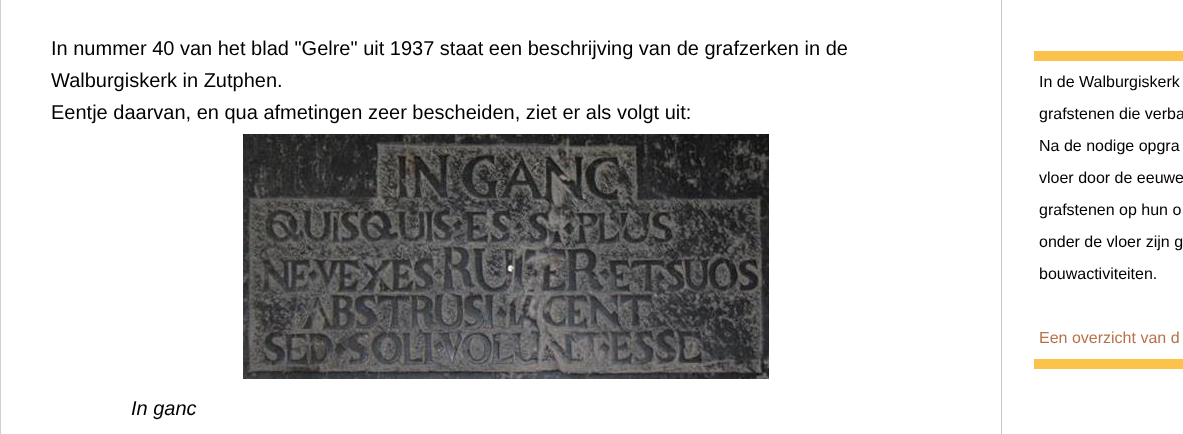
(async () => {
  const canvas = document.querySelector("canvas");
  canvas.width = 1183;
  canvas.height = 434;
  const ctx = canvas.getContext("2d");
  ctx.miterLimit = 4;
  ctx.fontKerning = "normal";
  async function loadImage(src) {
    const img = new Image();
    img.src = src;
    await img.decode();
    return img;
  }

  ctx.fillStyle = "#ffffff";
  ctx.fillRect(0, 0, 1183, 434);
  ctx.strokeStyle = "#d7d0c6";
  ctx.strokeRect(0.5, -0.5, 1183, 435);
  ctx.fillStyle = "#c8c7c6";
  ctx.fillRect(1001, 0, 1, 434);
  ctx.drawImage(await loadImage("img/1.png"), 243, 134, 526, 245);
  ctx.fillStyle = "#fbc34c";
  ctx.fillRect(1034, 51, 149, 10);
  ctx.fillRect(1034, 359, 149, 10);
  ctx.font = "20px Liberation Sans";
  ctx.fillStyle = "#000000";
  for (const [text, x, y] of [
    ["In nummer 40 van het blad \"Gelre\" uit 1937 staat een beschrijving van de grafzerken in de", 51, 55],
    ["Walburgiskerk in Zutphen.", 51, 87],
    ["Eentje daarvan, en qua afmetingen zeer bescheiden, ziet er als volgt uit:", 51, 119],
  ]) {
    ctx.fillText(text, x, y);
  }
  ctx.font = "italic 20px Liberation Sans";
  ctx.fillText("In ganc", 131, 415);
  ctx.font = "16px Liberation Sans";
  for (const [text, x, y] of [
    ["In de Walburgiskerk", 1039, 87],
    ["grafstenen die verba", 1039, 119],
    ["Na de nodige opgra", 1039, 151],
    ["vloer door de eeuwe", 1039, 183],
    ["grafstenen op hun o", 1039, 215],
    ["onder de vloer zijn g", 1039, 247],
    ["bouwactiviteiten.", 1039, 279],
  ]) {
    ctx.fillText(text, x, y);
  }
  ctx.fillStyle = "#b87247";
  ctx.fillText("Een overzicht van d", 1039, 343);
})();
